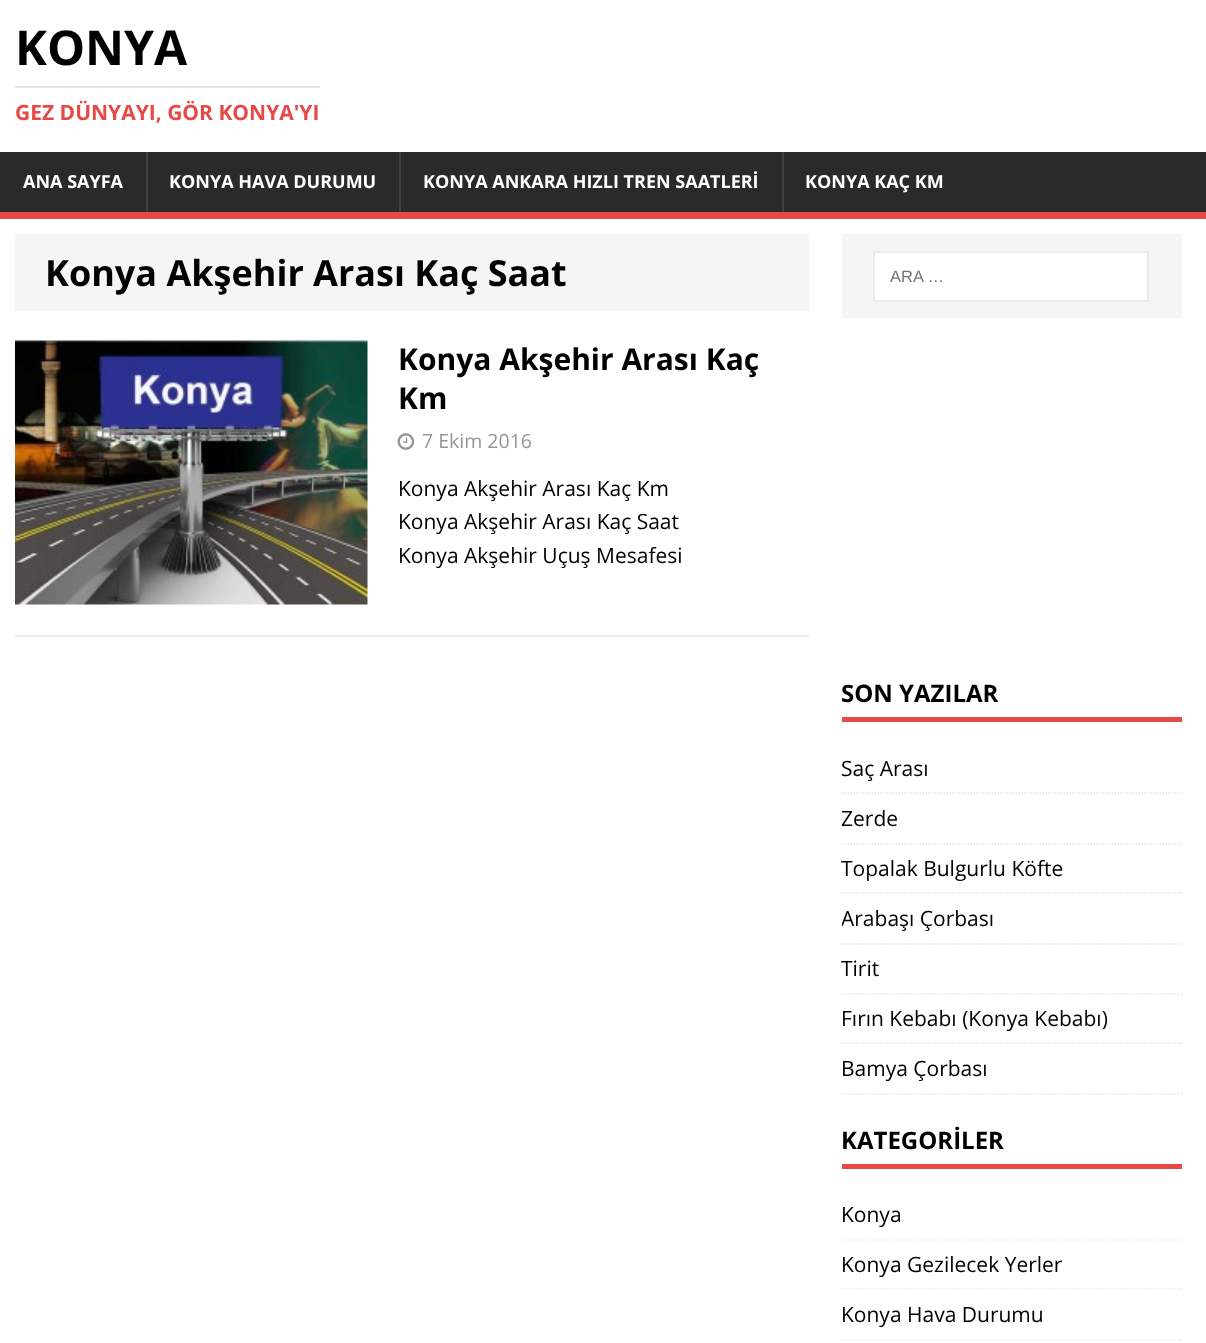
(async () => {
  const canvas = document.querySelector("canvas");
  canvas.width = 1206;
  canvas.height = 1343;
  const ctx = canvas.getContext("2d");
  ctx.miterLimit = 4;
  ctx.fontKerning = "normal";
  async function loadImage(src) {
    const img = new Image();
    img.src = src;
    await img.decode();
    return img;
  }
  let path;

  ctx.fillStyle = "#ffffff";
  ctx.fillRect(0, 0, 1206, 1343);
  for (const [x, y, w, h, color] of [
    [15, 86, 305, 2, "#e5e5e5"],
    [0, 152, 1206, 60, "#2a2a2a"],
    [0, 212, 1206, 7, "#e64946"],
    [146, 152, 2, 60, "#3f3f3f"],
    [399, 152, 2, 60, "#3f3f3f"],
    [782, 152, 2, 60, "#3f3f3f"],
    [15, 234, 794, 77, "#f5f5f5"],
    [15, 635, 794, 2, "#ebebeb"],
  ]) {
    ctx.fillStyle = color;
    ctx.fillRect(x, y, w, h);
  }
  ctx.drawImage(await loadImage("img/1.png"), 15, 340, 353, 265);
  ctx.drawImage(await loadImage("img/2.png"), 397, 433, 18, 17);
  ctx.fillStyle = "#f5f5f5";
  ctx.fillRect(842, 234, 340, 84);
  ctx.fillStyle = "#ffffff";
  ctx.beginPath();
  ctx.rect(874, 252, 274, 49);
  ctx.fill();
  ctx.strokeStyle = "#ebebeb";
  ctx.lineWidth = 2;
  ctx.stroke();
  ctx.fillStyle = "#e64946";
  ctx.fillRect(842, 717, 340, 5);
  path = new Path2D("M841.5 793H1182");
  ctx.strokeStyle = "#e5e5e5";
  ctx.lineWidth = 1.5;
  ctx.setLineDash([1.5, 1.5]);
  ctx.stroke(path);
  path = new Path2D("M841.5 844H1182");
  ctx.stroke(path);
  path = new Path2D("M841.5 893H1182");
  ctx.stroke(path);
  path = new Path2D("M841.5 944H1182");
  ctx.stroke(path);
  path = new Path2D("M841.5 994H1182");
  ctx.stroke(path);
  path = new Path2D("M841.5 1043H1182");
  ctx.stroke(path);
  path = new Path2D("M841.5 1094H1182");
  ctx.stroke(path);
  ctx.fillRect(842, 1164, 340, 5);
  path = new Path2D("M841.5 1240H1182");
  ctx.strokeStyle = "#ebebeb";
  ctx.stroke(path);
  path = new Path2D("M841.5 1289H1182");
  ctx.stroke(path);
  path = new Path2D("M841.5 1340H1182");
  ctx.stroke(path);
  ctx.font = "bold 48px Open Sans";
  ctx.fillStyle = "#000000";
  ctx.fillText("KONYA", 15, 65);
  ctx.font = "bold 21px Open Sans";
  ctx.fillStyle = "#e64946";
  ctx.fillText("GEZ DÜNYAYI, GÖR KONYA'YI", 15, 120);
  ctx.font = "bold 18px Open Sans";
  ctx.fillStyle = "#ffffff";
  for (const [text, x, y] of [
    ["ANA SAYFA", 23, 188],
    ["KONYA HAVA DURUMU", 169, 188],
    ["KONYA ANKARA HIZLI TREN SAATLERİ", 423, 188],
    ["KONYA KAÇ KM", 805, 188],
  ]) {
    ctx.fillText(text, x, y);
  }
  ctx.font = "bold 36px Open Sans";
  ctx.fillStyle = "#000000";
  ctx.fillText("Konya Akşehir Arası Kaç Saat", 45, 286);
  ctx.font = "bold 30px Open Sans";
  ctx.fillText("Konya Akşehir Arası Kaç", 398, 370);
  ctx.fillText("Km", 398, 409);
  ctx.font = "19.5px Open Sans";
  ctx.fillStyle = "#979797";
  ctx.fillText("7 Ekim 2016", 422, 448);
  ctx.font = "21px Open Sans";
  ctx.fillStyle = "#000000";
  for (const [text, x, y] of [
    ["Konya Akşehir Arası Kaç Km", 398, 496],
    ["Konya Akşehir Arası Kaç Saat", 398, 529],
    ["Konya Akşehir Uçuş Mesafesi", 398, 563],
  ]) {
    ctx.fillText(text, x, y);
  }
  ctx.font = "16.5px Liberation Sans";
  ctx.fillStyle = "#757575";
  ctx.fillText("ARA …", 890, 282);
  ctx.font = "bold 24px Open Sans";
  ctx.fillStyle = "#000000";
  ctx.fillText("SON YAZILAR", 841, 702);
  ctx.font = "21px Open Sans";
  for (const [text, x, y] of [
    ["Saç Arası", 841, 776],
    ["Zerde", 841, 826],
    ["Topalak Bulgurlu Köfte", 841, 876],
  ]) {
    ctx.fillText(text, x, y);
  }
  ctx.save();
  ctx.beginPath();
  ctx.rect(842, 678, 340, 417);
  ctx.clip();
  ctx.fillText("Arabaşı Çorbası", 841, 926);
  ctx.restore();
  for (const [text, x, y] of [
    ["Tirit", 841, 976],
    ["Fırın Kebabı (Konya Kebabı)", 841, 1026],
    ["Bamya Çorbası", 841, 1076],
  ]) {
    ctx.fillText(text, x, y);
  }
  ctx.font = "bold 24px Open Sans";
  ctx.fillText("KATEGORİLER", 841, 1149);
  ctx.font = "21px Open Sans";
  for (const [text, x, y] of [
    ["Konya", 841, 1222],
    ["Konya Gezilecek Yerler", 841, 1272],
    ["Konya Hava Durumu", 841, 1322],
  ]) {
    ctx.fillText(text, x, y);
  }
})();
